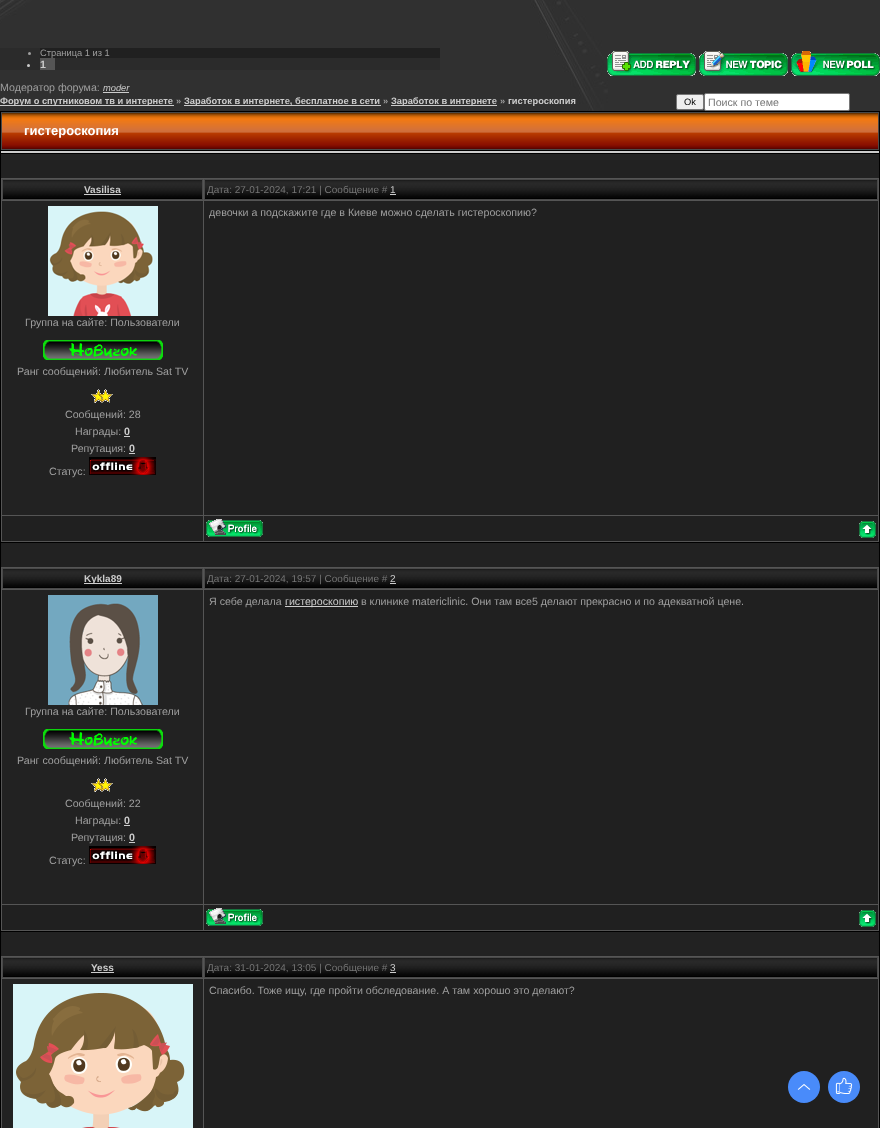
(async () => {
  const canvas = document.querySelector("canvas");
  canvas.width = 880;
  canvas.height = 1128;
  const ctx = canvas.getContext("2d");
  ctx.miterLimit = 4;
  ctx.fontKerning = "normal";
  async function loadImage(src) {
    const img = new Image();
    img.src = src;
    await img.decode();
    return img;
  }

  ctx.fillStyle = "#303030";
  ctx.fillRect(0, 0, 880, 1128);
  ctx.drawImage(await loadImage("img/1.png"), 0, 0, 608, 111);
  ctx.fillStyle = "#2b2b2b";
  ctx.fillRect(0, 48, 440, 22);
  ctx.fillStyle = "#202020";
  ctx.fillRect(40, 48, 400, 10);
  ctx.fillStyle = "#9f9f9f";
  ctx.beginPath();
  ctx.arc(29.5, 53.5, 1.5, 0, Math.PI * 2);
  ctx.fill();
  ctx.fillStyle = "#555555";
  ctx.fillRect(40, 58, 15, 12);
  ctx.fillStyle = "#cccccc";
  ctx.beginPath();
  ctx.arc(28.5, 65.5, 1.5, 0, Math.PI * 2);
  ctx.fill();
  ctx.drawImage(await loadImage("img/2.png"), 607, 51, 89, 25);
  ctx.drawImage(await loadImage("img/3.png"), 699, 51, 89, 25);
  ctx.drawImage(await loadImage("img/4.png"), 791, 51, 89, 25);
  for (const [x, y, w, h, color] of [
    [103, 92, 26, 1, "#cccccc"],
    [0, 105, 174, 1, "#cccccc"],
    [184, 105, 197, 1, "#cccccc"],
    [391, 105, 106, 1, "#cccccc"],
  ]) {
    ctx.fillStyle = color;
    ctx.fillRect(x, y, w, h);
  }
  ctx.fillStyle = "#efefef";
  ctx.beginPath();
  ctx.roundRect(676.5, 94.5, 27, 15, 1.5);
  ctx.fill();
  ctx.strokeStyle = "#767676";
  ctx.stroke();
  ctx.fillStyle = "#ffffff";
  ctx.beginPath();
  ctx.roundRect(704.5, 93.5, 145, 17, 1.5);
  ctx.fill();
  ctx.stroke();
  ctx.fillStyle = "#000000";
  ctx.fillRect(0, 111, 880, 1017);
  ctx.drawImage(await loadImage("img/5.png"), 2, 113, 876, 36);
  ctx.strokeStyle = "#494949";
  ctx.strokeRect(1.5, 112.5, 877, 37);
  for (const [x, y, w, h, color] of [
    [1, 151, 878, 2, "#cccccc"],
    [1, 154, 878, 24, "#222222"],
    [1, 178, 878, 364, "#555555"],
    [3, 198, 199, 1, "#000000"],
  ]) {
    ctx.fillStyle = color;
    ctx.fillRect(x, y, w, h);
  }
  ctx.drawImage(await loadImage("img/6.png"), 3, 180, 199, 18);
  ctx.strokeRect(2.5, 179.5, 200, 20);
  ctx.fillStyle = "#cccccc";
  ctx.fillRect(84, 194, 37, 1);
  ctx.fillStyle = "#000000";
  ctx.fillRect(205, 198, 672, 1);
  ctx.drawImage(await loadImage("img/7.png"), 205, 180, 672, 18);
  ctx.strokeRect(204.5, 179.5, 673, 20);
  for (const [x, y, w, h, color] of [
    [390, 194, 6, 1, "#cccccc"],
    [204, 201, 674, 314, "#202020"],
    [2, 201, 201, 314, "#222222"],
  ]) {
    ctx.fillStyle = color;
    ctx.fillRect(x, y, w, h);
  }
  ctx.drawImage(await loadImage("img/8.png"), 48, 206, 110, 110);
  ctx.drawImage(await loadImage("img/9.png"), 43, 340, 120, 20);
  ctx.drawImage(await loadImage("img/10.png"), 91, 389, 22, 14);
  ctx.fillStyle = "#cccccc";
  ctx.fillRect(124, 436, 6, 1);
  ctx.fillRect(129, 453, 6, 1);
  ctx.drawImage(await loadImage("img/11.png"), 89, 457, 67, 18);
  ctx.fillStyle = "#202020";
  ctx.fillRect(2, 516, 201, 25);
  ctx.fillRect(204, 516, 674, 25);
  ctx.drawImage(await loadImage("img/12.png"), 206, 519, 57, 18);
  ctx.drawImage(await loadImage("img/13.png"), 859, 521, 17, 17);
  for (const [x, y, w, h, color] of [
    [1, 543, 878, 24, "#222222"],
    [1, 567, 878, 364, "#555555"],
    [3, 587, 199, 1, "#000000"],
  ]) {
    ctx.fillStyle = color;
    ctx.fillRect(x, y, w, h);
  }
  ctx.drawImage(await loadImage("img/6.png"), 3, 569, 199, 18);
  ctx.strokeRect(2.5, 568.5, 200, 20);
  ctx.fillStyle = "#cccccc";
  ctx.fillRect(84, 583, 38, 1);
  ctx.fillStyle = "#000000";
  ctx.fillRect(205, 587, 672, 1);
  ctx.drawImage(await loadImage("img/7.png"), 205, 569, 672, 18);
  ctx.strokeRect(204.5, 568.5, 673, 20);
  for (const [x, y, w, h, color] of [
    [390, 583, 6, 1, "#cccccc"],
    [204, 590, 674, 314, "#202020"],
    [285, 606, 73, 1, "#cccccc"],
    [2, 590, 201, 314, "#222222"],
  ]) {
    ctx.fillStyle = color;
    ctx.fillRect(x, y, w, h);
  }
  ctx.drawImage(await loadImage("img/14.png"), 48, 595, 110, 110);
  ctx.drawImage(await loadImage("img/9.png"), 43, 729, 120, 20);
  ctx.drawImage(await loadImage("img/10.png"), 91, 778, 22, 14);
  ctx.fillStyle = "#cccccc";
  ctx.fillRect(124, 825, 6, 1);
  ctx.fillRect(129, 842, 6, 1);
  ctx.drawImage(await loadImage("img/11.png"), 89, 846, 67, 18);
  ctx.fillStyle = "#202020";
  ctx.fillRect(2, 905, 201, 25);
  ctx.fillRect(204, 905, 674, 25);
  ctx.drawImage(await loadImage("img/12.png"), 206, 908, 57, 18);
  ctx.drawImage(await loadImage("img/13.png"), 859, 910, 17, 17);
  for (const [x, y, w, h, color] of [
    [1, 932, 878, 24, "#222222"],
    [1, 956, 878, 172, "#555555"],
    [3, 976, 199, 1, "#000000"],
  ]) {
    ctx.fillStyle = color;
    ctx.fillRect(x, y, w, h);
  }
  ctx.drawImage(await loadImage("img/6.png"), 3, 958, 199, 18);
  ctx.strokeRect(2.5, 957.5, 200, 20);
  ctx.fillStyle = "#cccccc";
  ctx.fillRect(91, 972, 23, 1);
  ctx.fillStyle = "#000000";
  ctx.fillRect(205, 976, 672, 1);
  ctx.drawImage(await loadImage("img/7.png"), 205, 958, 672, 18);
  ctx.strokeRect(204.5, 957.5, 673, 20);
  ctx.fillStyle = "#cccccc";
  ctx.fillRect(390, 972, 6, 1);
  ctx.fillStyle = "#222222";
  ctx.fillRect(2, 979, 201, 149);
  ctx.drawImage(await loadImage("img/15.png"), 13, 984, 180, 144);
  ctx.fillStyle = "#202020";
  ctx.fillRect(204, 979, 674, 149);
  ctx.fillStyle = "#498bfa";
  ctx.beginPath();
  ctx.arc(804, 1087, 16, 0, Math.PI * 2);
  ctx.fill();
  ctx.drawImage(await loadImage("img/16.png"), 797, 1084, 14, 6);
  ctx.beginPath();
  ctx.arc(844, 1087, 16, 0, Math.PI * 2);
  ctx.fill();
  ctx.drawImage(await loadImage("img/17.png"), 835, 1077, 18, 17);
  ctx.font = "9.3px Liberation Sans";
  ctx.fillStyle = "#9f9f9f";
  ctx.fillText("Страница 1 из 1", 40, 56);
  ctx.font = "bold 10.65px Liberation Sans";
  ctx.fillStyle = "#cccccc";
  ctx.fillText("1", 40, 68);
  ctx.font = "10.65px Liberation Sans";
  ctx.fillStyle = "#9f9f9f";
  ctx.fillText("Модератор форума:", 0, 91);
  ctx.font = "italic 9.3px Liberation Sans";
  ctx.fillStyle = "#cccccc";
  ctx.fillText("moder", 103, 91);
  ctx.font = "bold 9.3px Liberation Sans";
  ctx.fillText("Форум о спутниковом тв и интернете", 0, 104);
  ctx.fillStyle = "#9f9f9f";
  ctx.fillText("»", 176, 104);
  ctx.fillStyle = "#cccccc";
  ctx.fillText("Заработок в интернете, бесплатное в сети", 184, 104);
  ctx.fillStyle = "#9f9f9f";
  ctx.fillText("»", 383, 104);
  ctx.fillStyle = "#cccccc";
  ctx.fillText("Заработок в интернете", 391, 104);
  ctx.fillStyle = "#9f9f9f";
  ctx.fillText("»", 500, 104);
  ctx.fillStyle = "#cccccc";
  ctx.fillText("гистероскопия", 508, 104);
  ctx.font = "9.3px Liberation Sans";
  ctx.fillStyle = "#000000";
  ctx.fillText("Ok", 684, 105);
  ctx.font = "10.65px Liberation Sans";
  ctx.fillStyle = "#757575";
  ctx.fillText("Поиск по теме", 708, 106);
  ctx.font = "bold 13px Liberation Sans";
  ctx.fillStyle = "#ffffff";
  ctx.fillText("гистероскопия", 24, 135);
  ctx.font = "bold 10px Liberation Sans";
  ctx.fillStyle = "#cccccc";
  ctx.fillText("Vasilisa", 84, 193);
  ctx.font = "10px Liberation Sans";
  ctx.fillStyle = "#757575";
  ctx.fillText("Дата: 27-01-2024, 17:21 | Сообщение #", 207, 193);
  ctx.fillStyle = "#cccccc";
  ctx.fillText("1", 390, 193);
  ctx.font = "10.65px Liberation Sans";
  ctx.fillStyle = "#9f9f9f";
  for (const [text, x, y] of [
    ["девочки а подскажите где в Киеве можно сделать гистероскопию?", 209, 216],
    ["Группа на сайте: Пользователи", 25, 326],
    ["Ранг сообщений: Любитель Sat TV", 17, 375],
    ["Сообщений: 28", 65, 418],
    ["Награды:", 75, 435],
  ]) {
    ctx.fillText(text, x, y);
  }
  ctx.font = "bold 10.65px Liberation Sans";
  ctx.fillStyle = "#cccccc";
  ctx.fillText("0", 124, 435);
  ctx.font = "10.65px Liberation Sans";
  ctx.fillStyle = "#9f9f9f";
  ctx.fillText("Репутация:", 71, 452);
  ctx.font = "bold 10.65px Liberation Sans";
  ctx.fillStyle = "#cccccc";
  ctx.fillText("0", 129, 452);
  ctx.font = "10.65px Liberation Sans";
  ctx.fillStyle = "#9f9f9f";
  ctx.fillText("Статус:", 49, 475);
  ctx.font = "bold 10px Liberation Sans";
  ctx.fillStyle = "#cccccc";
  ctx.fillText("Kykla89", 84, 582);
  ctx.font = "10px Liberation Sans";
  ctx.fillStyle = "#757575";
  ctx.fillText("Дата: 27-01-2024, 19:57 | Сообщение #", 207, 582);
  ctx.fillStyle = "#cccccc";
  ctx.fillText("2", 390, 582);
  ctx.font = "10.65px Liberation Sans";
  ctx.fillStyle = "#9f9f9f";
  ctx.fillText("Я себе делала", 209, 605);
  ctx.fillStyle = "#cccccc";
  ctx.fillText("гистероскопию", 285, 605);
  ctx.fillStyle = "#9f9f9f";
  for (const [text, x, y] of [
    ["в клинике matericlinic. Они там все5 делают прекрасно и по адекватной цене.", 361, 605],
    ["Группа на сайте: Пользователи", 25, 715],
    ["Ранг сообщений: Любитель Sat TV", 17, 764],
    ["Сообщений: 22", 65, 807],
    ["Награды:", 75, 824],
  ]) {
    ctx.fillText(text, x, y);
  }
  ctx.font = "bold 10.65px Liberation Sans";
  ctx.fillStyle = "#cccccc";
  ctx.fillText("0", 124, 824);
  ctx.font = "10.65px Liberation Sans";
  ctx.fillStyle = "#9f9f9f";
  ctx.fillText("Репутация:", 71, 841);
  ctx.font = "bold 10.65px Liberation Sans";
  ctx.fillStyle = "#cccccc";
  ctx.fillText("0", 129, 841);
  ctx.font = "10.65px Liberation Sans";
  ctx.fillStyle = "#9f9f9f";
  ctx.fillText("Статус:", 49, 864);
  ctx.font = "bold 10px Liberation Sans";
  ctx.fillStyle = "#cccccc";
  ctx.fillText("Yess", 91, 971);
  ctx.font = "10px Liberation Sans";
  ctx.fillStyle = "#757575";
  ctx.fillText("Дата: 31-01-2024, 13:05 | Сообщение #", 207, 971);
  ctx.fillStyle = "#cccccc";
  ctx.fillText("3", 390, 971);
  ctx.font = "10.65px Liberation Sans";
  ctx.fillStyle = "#9f9f9f";
  ctx.fillText("Спасибо. Тоже ищу, где пройти обследование. А там хорошо это делают?", 209, 994);
})();
